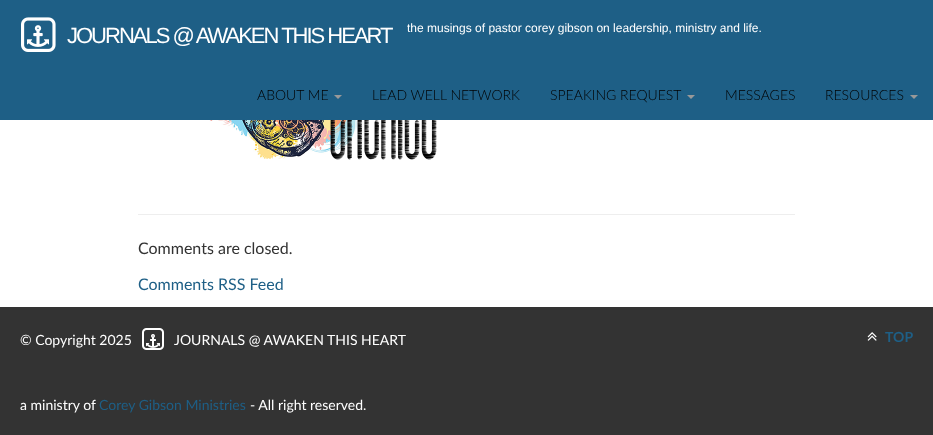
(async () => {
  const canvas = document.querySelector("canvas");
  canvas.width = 933;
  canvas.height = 435;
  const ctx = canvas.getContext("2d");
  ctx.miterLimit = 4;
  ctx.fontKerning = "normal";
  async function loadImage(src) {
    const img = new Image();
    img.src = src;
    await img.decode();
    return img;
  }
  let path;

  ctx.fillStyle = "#ffffff";
  ctx.fillRect(0, 0, 933, 435);
  ctx.fillStyle = "#1e5f86";
  ctx.fillRect(0, 0, 933, 120);
  ctx.drawImage(await loadImage("img/1.png"), 21, 17, 35, 35);
  ctx.drawImage(await loadImage("img/2.png"), 27, 25, 22, 22);
  ctx.fillStyle = "#999999";
  path = new Path2D("M334 95H342L338 99Z");
  ctx.fill(path);
  path = new Path2D("M687 95H695L691 99Z");
  ctx.fill(path);
  path = new Path2D("M910 95H918L914 99Z");
  ctx.fill(path);
  ctx.drawImage(await loadImage("img/3.png"), 140, 120, 297, 40);
  ctx.fillStyle = "#eeeeee";
  ctx.fillRect(138, 214, 657, 1);
  ctx.fillStyle = "#333333";
  ctx.fillRect(0, 307, 933, 128);
  ctx.drawImage(await loadImage("img/4.png"), 142, 328, 22, 22);
  ctx.drawImage(await loadImage("img/5.png"), 146, 334, 14, 14);
  ctx.drawImage(await loadImage("img/6.png"), 867, 332, 10, 9);
  ctx.letterSpacing = "-2px";
  ctx.font = "22px Liberation Sans";
  ctx.fillStyle = "#ffffff";
  ctx.fillText("JOURNALS @ AWAKEN THIS HEART", 67, 43);
  ctx.letterSpacing = "0px";
  ctx.font = "12px Liberation Sans";
  ctx.fillText("the musings of pastor corey gibson on leadership, ministry and life.", 407, 32);
  ctx.font = "300 14px Lato";
  ctx.fillStyle = "#000000";
  for (const [text, x, y] of [
    ["ABOUT ME", 257, 100],
    ["LEAD WELL NETWORK", 372, 100],
    ["SPEAKING REQUEST", 550, 100],
    ["MESSAGES", 725, 100],
    ["RESOURCES", 825, 100],
  ]) {
    ctx.fillText(text, x, y);
  }
  ctx.font = "16px Lato";
  ctx.fillStyle = "#333333";
  ctx.fillText("Comments are closed.", 138, 254);
  ctx.fillStyle = "#1e5f86";
  ctx.fillText("Comments RSS Feed", 138, 290);
  ctx.font = "14px Lato";
  ctx.fillStyle = "#ffffff";
  ctx.fillText("© Copyright 2025", 20, 345);
  ctx.fillText("JOURNALS @ AWAKEN THIS HEART", 174, 345);
  ctx.font = "bold 14px Lato";
  ctx.fillStyle = "#1e5f86";
  ctx.fillText("TOP", 885, 342);
  ctx.font = "14px Lato";
  ctx.fillStyle = "#ffffff";
  ctx.fillText("a ministry of", 20, 410);
  ctx.fillStyle = "#1e5f86";
  ctx.fillText("Corey Gibson Ministries", 99, 410);
  ctx.fillStyle = "#ffffff";
  ctx.fillText("- All right reserved.", 250, 410);
})();
